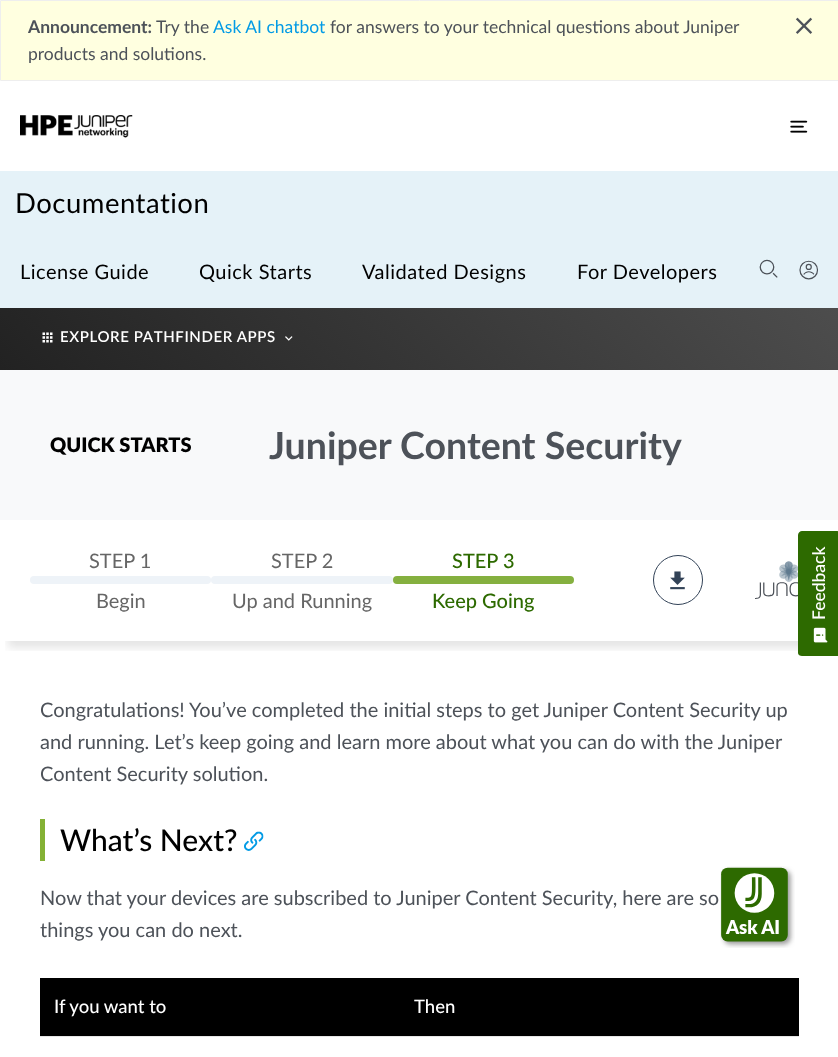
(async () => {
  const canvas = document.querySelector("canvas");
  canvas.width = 838;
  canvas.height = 1057;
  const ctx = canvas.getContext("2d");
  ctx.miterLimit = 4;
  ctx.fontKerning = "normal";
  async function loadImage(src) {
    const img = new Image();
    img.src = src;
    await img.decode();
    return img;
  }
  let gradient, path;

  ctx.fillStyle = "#ffffff";
  ctx.fillRect(0, 0, 838, 1057);
  ctx.fillStyle = "#ffffe0";
  ctx.beginPath();
  ctx.rect(0.5, 0.5, 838, 80);
  ctx.fill();
  ctx.strokeStyle = "#eeeeee";
  ctx.stroke();
  ctx.drawImage(await loadImage("img/1.png"), 795, 17, 18, 17);
  ctx.drawImage(await loadImage("img/2.png"), 20, 115, 113, 23);
  ctx.drawImage(await loadImage("img/3.png"), 790, 120, 18, 13);
  ctx.fillStyle = "#e5f2f8";
  ctx.fillRect(0, 171, 838, 137);
  ctx.drawImage(await loadImage("img/4.png"), 759, 259, 19, 19);
  ctx.drawImage(await loadImage("img/5.png"), 799, 260, 19, 20);
  gradient = ctx.createLinearGradient(194, 564, 645, 113);
  gradient.addColorStop(0, "#222222");
  gradient.addColorStop(1, "#4d4d4d");
  ctx.fillStyle = gradient;
  ctx.fillRect(0, 308, 838, 62);
  ctx.drawImage(await loadImage("img/6.png"), 42, 332, 11, 11);
  ctx.drawImage(await loadImage("img/7.png"), 285, 336, 8, 5);
  ctx.fillStyle = "#f8f9fa";
  ctx.fillRect(0, 370, 838, 150);
  ctx.save();
  ctx.beginPath();
  ctx.rect(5, 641, 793, 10);
  ctx.clip();
  ctx.fillStyle = "rgba(0, 0, 0, 0.1)";
  ctx.filter = "blur(4px)";
  ctx.beginPath();
  ctx.rect(8, 541, 823, 107);
  ctx.fill();
  ctx.filter = "none";
  ctx.restore();
  ctx.fillStyle = "#eef3f8";
  ctx.beginPath();
  ctx.roundRect(30, 576, 181, 8, 4);
  ctx.fill();
  ctx.beginPath();
  ctx.roundRect(211, 576, 182, 8, 4);
  ctx.fill();
  ctx.fillStyle = "#85b03f";
  ctx.beginPath();
  ctx.roundRect(393, 576, 181, 8, 4);
  ctx.fill();
  ctx.beginPath();
  ctx.arc(678, 580, 24.5, 0, Math.PI * 2);
  ctx.strokeStyle = "#324257";
  ctx.stroke();
  ctx.drawImage(await loadImage("img/8.png"), 670, 571, 15, 19);
  ctx.drawImage(await loadImage("img/9.png"), 755, 561, 43, 38);
  ctx.fillStyle = "#84b135";
  ctx.fillRect(40, 819, 5, 42);
  ctx.drawImage(await loadImage("img/10.png"), 244, 831, 20, 20);
  ctx.fillStyle = "#000000";
  ctx.fillRect(40, 978, 759, 58);
  ctx.fillStyle = "#e6e6e6";
  ctx.fillRect(40, 1036, 759, 1);
  ctx.drawImage(await loadImage("img/11.png"), 720, 866, 75, 82);
  ctx.fillStyle = "#2d6a00";
  path = new Path2D("M798 653V535C798 533 800 531 802 531H837C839 531 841 533 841 535V653C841 655 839 656 837 656H802C800 656 798 655 798 653Z");
  ctx.fill(path);
  ctx.drawImage(await loadImage("img/12.png"), 813, 627, 15, 16);
  ctx.font = "bold 17.5px Lato";
  ctx.fillStyle = "#4d5259";
  ctx.fillText("Announcement:", 28, 33);
  ctx.font = "17.5px Lato";
  ctx.fillText("Try the", 156, 33);
  ctx.fillStyle = "#039be5";
  ctx.fillText("Ask AI chatbot", 213, 33);
  ctx.fillStyle = "#4d5259";
  ctx.fillText("for answers to your technical questions about Juniper", 330, 33);
  ctx.fillText("products and solutions.", 28, 60);
  ctx.letterSpacing = "0.5px";
  ctx.font = "27.5px Lato";
  ctx.fillStyle = "#000000";
  ctx.fillText("Documentation", 15, 213);
  ctx.font = "20px Lato";
  for (const [text, x, y] of [
    ["License Guide", 20, 279],
    ["Quick Starts", 199, 279],
    ["Validated Designs", 362, 279],
    ["For Developers", 577, 279],
  ]) {
    ctx.fillText(text, x, y);
  }
  ctx.letterSpacing = "0.6px";
  ctx.font = "600 15px Lato";
  ctx.fillStyle = "#ffffff";
  ctx.fillText("EXPLORE PATHFINDER APPS", 60, 342);
  ctx.letterSpacing = "0px";
  ctx.font = "900 20px Lato";
  ctx.fillStyle = "#000000";
  ctx.fillText("QUICK STARTS", 50, 452);
  ctx.font = "bold 37.5px Lato";
  ctx.fillStyle = "#4d5259";
  ctx.fillText("Juniper Content Security", 269, 459);
  ctx.font = "20px Lato";
  ctx.fillStyle = "#666666";
  for (const [text, x, y] of [
    ["STEP 1", 89, 568],
    ["Begin", 96, 608],
    ["STEP 2", 271, 568],
    ["Up and Running", 232, 608],
  ]) {
    ctx.fillText(text, x, y);
  }
  ctx.font = "500 20px Lato";
  ctx.fillStyle = "#2d6a00";
  ctx.fillText("STEP 3", 452, 568);
  ctx.fillText("Keep Going", 432, 608);
  ctx.font = "20px Lato";
  ctx.fillStyle = "#4d5259";
  for (const [text, x, y] of [
    ["Congratulations! You’ve completed the initial steps to get Juniper Content Security up", 40, 717],
    ["and running. Let’s keep going and learn more about what you can do with the Juniper", 40, 749],
    ["Content Security solution.", 40, 781],
  ]) {
    ctx.fillText(text, x, y);
  }
  ctx.font = "500 30px Lato";
  ctx.fillStyle = "#000000";
  ctx.fillText("What’s Next?", 60, 851);
  ctx.font = "20px Lato";
  ctx.fillStyle = "#4d5259";
  ctx.fillText("Now that your devices are subscribed to Juniper Content Security, here are so", 40, 905);
  ctx.fillText("things you can do next.", 40, 937);
  ctx.font = "500 18.5px Lato";
  ctx.fillStyle = "#ffffff";
  ctx.fillText("If you want to", 54, 1013);
  ctx.fillText("Then", 414, 1013);
  ctx.font = "500 17.5px Lato";
  ctx.save();
  ctx.translate(825, 620);
  ctx.rotate(-90 * Math.PI / 180);
  ctx.fillText("Feedback", 0, 0);
  ctx.restore();
})();
